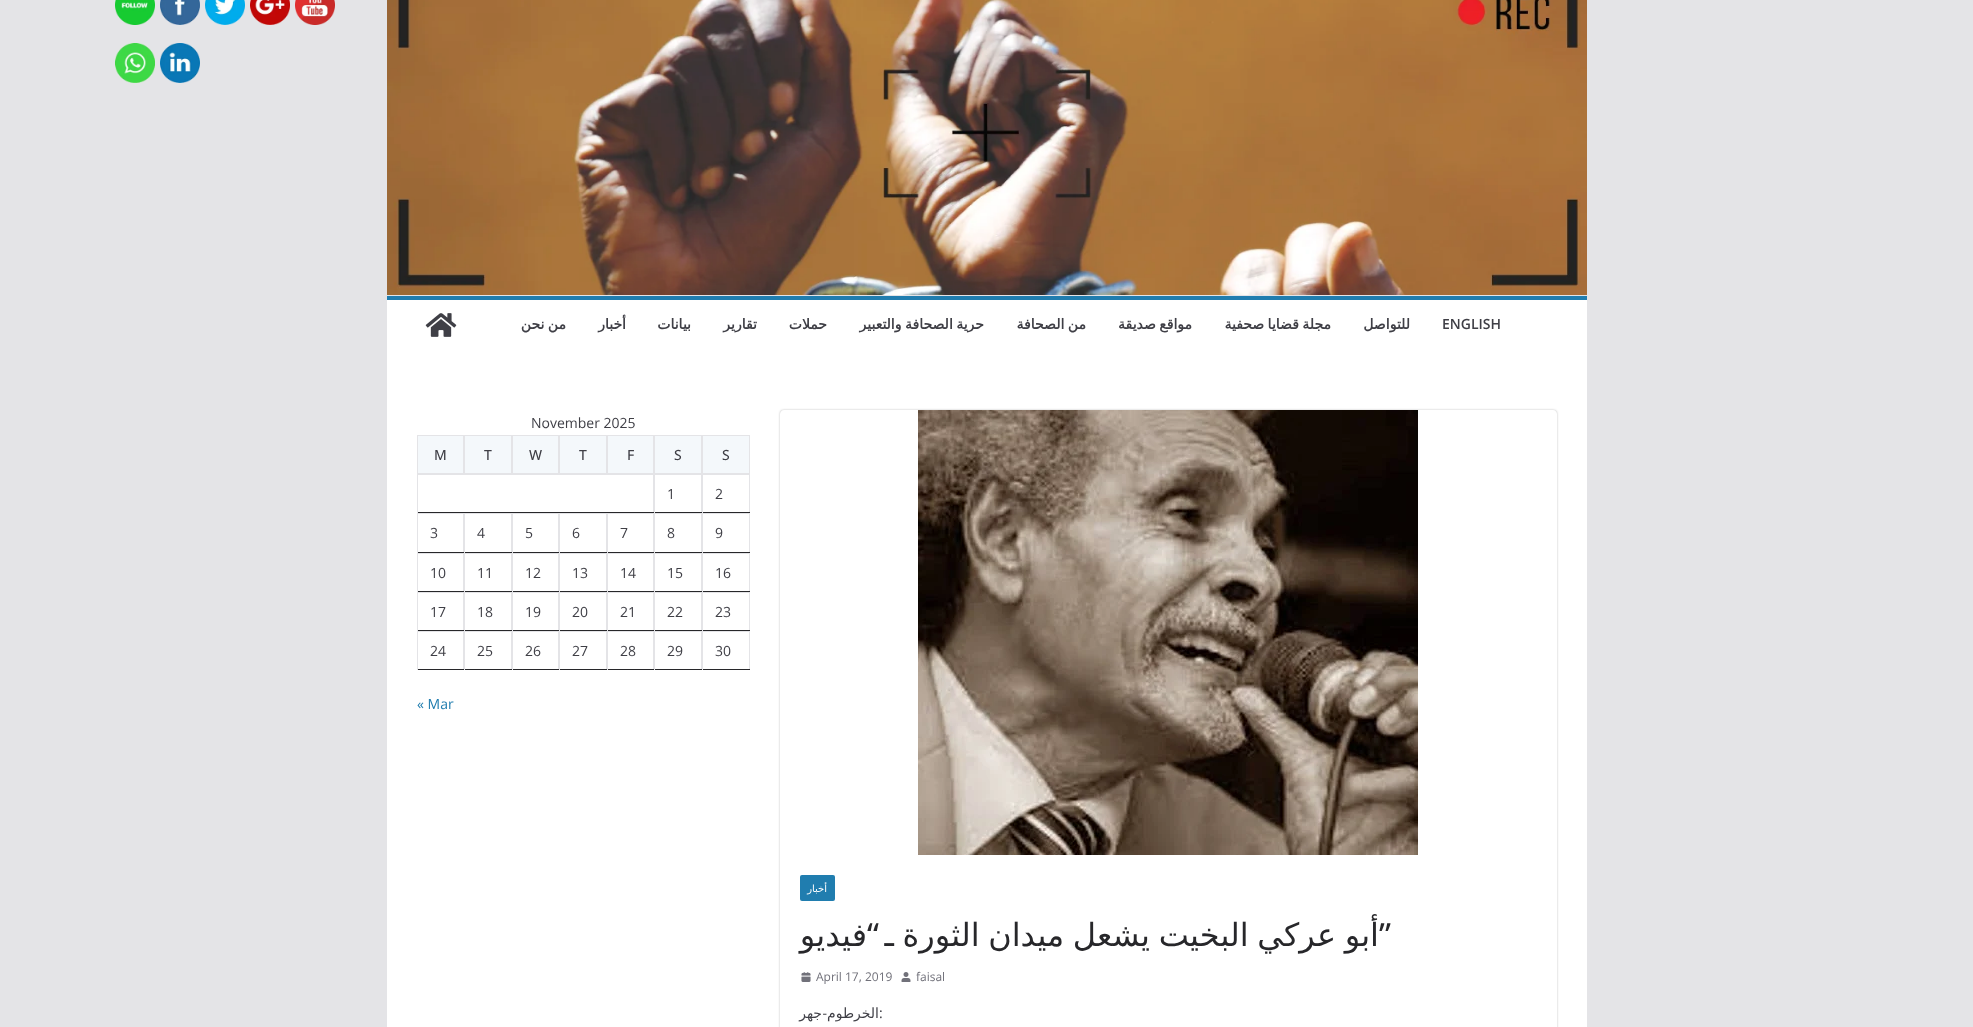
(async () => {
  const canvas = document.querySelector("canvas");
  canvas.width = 1973;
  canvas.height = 1027;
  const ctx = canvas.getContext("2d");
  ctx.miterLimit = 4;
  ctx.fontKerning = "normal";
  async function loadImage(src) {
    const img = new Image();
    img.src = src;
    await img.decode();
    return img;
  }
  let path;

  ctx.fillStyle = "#e4e4e7";
  ctx.fillRect(0, 0, 1973, 1027);
  ctx.drawImage(await loadImage("img/1.png"), 295, 0, 40, 25);
  ctx.drawImage(await loadImage("img/2.png"), 250, 0, 40, 25);
  ctx.drawImage(await loadImage("img/3.png"), 205, 0, 40, 25);
  ctx.drawImage(await loadImage("img/4.png"), 160, 0, 40, 25);
  ctx.drawImage(await loadImage("img/5.png"), 115, 0, 40, 25);
  ctx.drawImage(await loadImage("img/6.png"), 160, 43, 40, 40);
  ctx.drawImage(await loadImage("img/7.png"), 115, 43, 40, 40);
  ctx.fillStyle = "#ffffff";
  ctx.fillRect(387, 0, 1200, 1027);
  ctx.drawImage(await loadImage("img/8.png"), 387, 0, 1200, 295);
  ctx.fillStyle = "#e4e4e7";
  ctx.fillRect(387, 295, 1200, 1);
  ctx.fillStyle = "#207daf";
  ctx.fillRect(387, 296, 1200, 4);
  ctx.drawImage(await loadImage("img/9.png"), 425, 313, 32, 24);
  ctx.fillStyle = "#f4f8fb";
  ctx.fillRect(418, 436, 331, 37);
  ctx.strokeStyle = "#e4e4e7";
  ctx.strokeRect(702.5, 435.5, 47, 38);
  ctx.strokeRect(654.5, 435.5, 47, 38);
  ctx.strokeRect(607.5, 435.5, 46, 38);
  ctx.strokeRect(559.5, 435.5, 47, 38);
  ctx.strokeRect(512.5, 435.5, 46, 38);
  ctx.strokeRect(464.5, 435.5, 47, 38);
  ctx.strokeRect(417.5, 435.5, 46, 38);
  for (const [x, y, w, h, color] of [
    [417, 474, 333, 1, "#e4e4e7"],
    [653, 474, 1, 39, "#e4e4e7"],
    [417, 512, 237, 1, "#27272a"],
    [417, 474, 1, 39, "#e4e4e7"],
    [749, 474, 1, 39, "#e4e4e7"],
    [702, 512, 48, 1, "#27272a"],
    [702, 474, 1, 39, "#e4e4e7"],
    [701, 474, 1, 39, "#e4e4e7"],
    [654, 512, 48, 1, "#27272a"],
    [654, 474, 1, 39, "#e4e4e7"],
    [417, 513, 333, 1, "#e4e4e7"],
    [749, 513, 1, 40, "#e4e4e7"],
    [702, 552, 48, 1, "#27272a"],
    [702, 513, 1, 40, "#e4e4e7"],
    [701, 513, 1, 40, "#e4e4e7"],
    [654, 552, 48, 1, "#27272a"],
    [654, 513, 1, 40, "#e4e4e7"],
    [653, 513, 1, 40, "#e4e4e7"],
    [607, 552, 47, 1, "#27272a"],
    [607, 513, 1, 40, "#e4e4e7"],
    [606, 513, 1, 40, "#e4e4e7"],
    [559, 552, 48, 1, "#27272a"],
    [559, 513, 1, 40, "#e4e4e7"],
    [558, 513, 1, 40, "#e4e4e7"],
    [512, 552, 47, 1, "#27272a"],
    [512, 513, 1, 40, "#e4e4e7"],
    [511, 513, 1, 40, "#e4e4e7"],
    [464, 552, 48, 1, "#27272a"],
    [464, 513, 1, 40, "#e4e4e7"],
    [463, 513, 1, 40, "#e4e4e7"],
    [417, 552, 47, 1, "#27272a"],
    [417, 513, 1, 40, "#e4e4e7"],
    [417, 553, 333, 1, "#e4e4e7"],
    [749, 553, 1, 39, "#e4e4e7"],
    [702, 591, 48, 1, "#27272a"],
    [702, 553, 1, 39, "#e4e4e7"],
    [701, 553, 1, 39, "#e4e4e7"],
    [654, 591, 48, 1, "#27272a"],
    [654, 553, 1, 39, "#e4e4e7"],
    [653, 553, 1, 39, "#e4e4e7"],
    [607, 591, 47, 1, "#27272a"],
    [607, 553, 1, 39, "#e4e4e7"],
    [606, 553, 1, 39, "#e4e4e7"],
    [559, 591, 48, 1, "#27272a"],
    [559, 553, 1, 39, "#e4e4e7"],
    [558, 553, 1, 39, "#e4e4e7"],
    [512, 591, 47, 1, "#27272a"],
    [512, 553, 1, 39, "#e4e4e7"],
    [511, 553, 1, 39, "#e4e4e7"],
    [464, 591, 48, 1, "#27272a"],
    [464, 553, 1, 39, "#e4e4e7"],
    [463, 553, 1, 39, "#e4e4e7"],
    [417, 591, 47, 1, "#27272a"],
    [417, 553, 1, 39, "#e4e4e7"],
    [417, 592, 333, 1, "#e4e4e7"],
    [749, 592, 1, 39, "#e4e4e7"],
    [702, 630, 48, 1, "#27272a"],
    [702, 592, 1, 39, "#e4e4e7"],
    [701, 592, 1, 39, "#e4e4e7"],
    [654, 630, 48, 1, "#27272a"],
    [654, 592, 1, 39, "#e4e4e7"],
    [653, 592, 1, 39, "#e4e4e7"],
    [607, 630, 47, 1, "#27272a"],
    [607, 592, 1, 39, "#e4e4e7"],
    [606, 592, 1, 39, "#e4e4e7"],
    [559, 630, 48, 1, "#27272a"],
    [559, 592, 1, 39, "#e4e4e7"],
    [558, 592, 1, 39, "#e4e4e7"],
    [512, 630, 47, 1, "#27272a"],
    [512, 592, 1, 39, "#e4e4e7"],
    [511, 592, 1, 39, "#e4e4e7"],
    [464, 630, 48, 1, "#27272a"],
    [464, 592, 1, 39, "#e4e4e7"],
    [463, 592, 1, 39, "#e4e4e7"],
    [417, 630, 47, 1, "#27272a"],
    [417, 592, 1, 39, "#e4e4e7"],
    [417, 631, 333, 1, "#e4e4e7"],
    [749, 631, 1, 39, "#e4e4e7"],
    [702, 669, 48, 1, "#27272a"],
    [702, 631, 1, 39, "#e4e4e7"],
    [701, 631, 1, 39, "#e4e4e7"],
    [654, 669, 48, 1, "#27272a"],
    [654, 631, 1, 39, "#e4e4e7"],
    [653, 631, 1, 39, "#e4e4e7"],
    [607, 669, 47, 1, "#27272a"],
    [607, 631, 1, 39, "#e4e4e7"],
    [606, 631, 1, 39, "#e4e4e7"],
    [559, 669, 48, 1, "#27272a"],
    [559, 631, 1, 39, "#e4e4e7"],
    [558, 631, 1, 39, "#e4e4e7"],
    [512, 669, 47, 1, "#27272a"],
    [512, 631, 1, 39, "#e4e4e7"],
    [511, 631, 1, 39, "#e4e4e7"],
    [464, 669, 48, 1, "#27272a"],
    [464, 631, 1, 39, "#e4e4e7"],
    [463, 631, 1, 39, "#e4e4e7"],
    [417, 669, 47, 1, "#27272a"],
    [417, 631, 1, 39, "#e4e4e7"],
  ]) {
    ctx.fillStyle = color;
    ctx.fillRect(x, y, w, h);
  }
  ctx.save();
  path = new Path2D("M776 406H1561V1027H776ZM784 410H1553C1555 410 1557 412 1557 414V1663C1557 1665 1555 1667 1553 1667H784C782 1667 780 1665 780 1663V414C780 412 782 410 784 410Z");
  ctx.clip(path, "evenodd");
  ctx.fillStyle = "rgba(0, 0, 0, 0.24)";
  ctx.filter = "blur(1px)";
  ctx.beginPath();
  ctx.roundRect(780, 410, 777, 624, 4);
  ctx.fill();
  ctx.filter = "none";
  ctx.restore();
  ctx.drawImage(await loadImage("img/10.png"), 918, 410, 500, 445);
  ctx.fillStyle = "#207daf";
  ctx.beginPath();
  ctx.roundRect(800, 875, 35, 26, 2);
  ctx.fill();
  ctx.drawImage(await loadImage("img/11.png"), 901, 972, 10, 10);
  ctx.drawImage(await loadImage("img/12.png"), 801, 972, 10, 10);
  ctx.font = "600 14px Open Sans";
  ctx.fillStyle = "#3f3f46";
  ctx.fillText("ENGLISH", 1442, 329);
  ctx.direction = "rtl";
  ctx.font = "bold 14px DejaVu Sans";
  ctx.fillText("للتواصل", 1410, 329);
  ctx.wordSpacing = "-1px";
  for (const [text, x, y] of [
    ["مجلة قضايا صحفية", 1331, 329],
    ["مواقع صديقة", 1192, 329],
    ["من الصحافة", 1086, 329],
    ["حرية الصحافة والتعبير", 984, 329],
  ]) {
    ctx.fillText(text, x, y);
  }
  ctx.wordSpacing = "0px";
  for (const [text, x, y] of [
    ["حملات", 827, 329],
    ["تقارير", 757, 329],
    ["بيانات", 691, 329],
    ["أخبار", 626, 329],
  ]) {
    ctx.fillText(text, x, y);
  }
  ctx.wordSpacing = "-1px";
  ctx.fillText("من نحن", 566, 329);
  ctx.wordSpacing = "0px";
  ctx.direction = "ltr";
  ctx.font = "14px Open Sans";
  ctx.fillText("November 2025", 531, 428);
  ctx.font = "500 14px Open Sans";
  for (const [text, x, y] of [
    ["S", 722, 460],
    ["S", 674, 460],
    ["F", 627, 460],
    ["T", 579, 460],
    ["W", 529, 460],
    ["T", 484, 460],
    ["M", 434, 460],
  ]) {
    ctx.fillText(text, x, y);
  }
  ctx.font = "14px Open Sans";
  for (const [text, x, y] of [
    ["2", 715, 499],
    ["1", 667, 499],
    ["9", 715, 538],
    ["8", 667, 538],
    ["7", 620, 538],
    ["6", 572, 538],
    ["5", 525, 538],
    ["4", 477, 538],
    ["3", 430, 538],
    ["16", 715, 578],
    ["15", 667, 578],
    ["14", 620, 578],
    ["13", 572, 578],
    ["12", 525, 578],
    ["11", 477, 578],
    ["10", 430, 578],
    ["23", 715, 617],
    ["22", 667, 617],
    ["21", 620, 617],
    ["20", 572, 617],
    ["19", 525, 617],
    ["18", 477, 617],
    ["17", 430, 617],
    ["30", 715, 656],
    ["29", 667, 656],
    ["28", 620, 656],
    ["27", 572, 656],
    ["26", 525, 656],
    ["25", 477, 656],
    ["24", 430, 656],
  ]) {
    ctx.fillText(text, x, y);
  }
  ctx.fillStyle = "#207daf";
  ctx.fillText("« Mar", 417, 709);
  ctx.direction = "rtl";
  ctx.font = "10px DejaVu Sans";
  ctx.fillStyle = "#ffffff";
  ctx.fillText("أخبار", 827, 892);
  ctx.wordSpacing = "-1.5px";
  ctx.font = "32px DejaVu Sans";
  ctx.fillStyle = "#27272a";
  ctx.fillText("أبو عركي البخيت يشعل ميدان الثورة ـ", 1379, 946);
  ctx.wordSpacing = "0px";
  ctx.font = "500 32px Open Sans";
  ctx.fillText("“", 879, 946);
  ctx.direction = "ltr";
  ctx.fillText("”", 1379, 946);
  ctx.direction = "rtl";
  ctx.font = "32px DejaVu Sans";
  ctx.fillText("فيديو", 867, 946);
  ctx.direction = "ltr";
  ctx.font = "12px Open Sans";
  ctx.fillStyle = "#71717a";
  ctx.fillText("faisal", 916, 981);
  ctx.fillText("April 17, 2019", 816, 981);
  ctx.font = "14px Open Sans";
  ctx.fillStyle = "#3f3f46";
  ctx.fillText(":", 879, 1018);
  ctx.direction = "rtl";
  ctx.font = "14px DejaVu Sans";
  ctx.fillText("الخرطوم", 879, 1018);
  ctx.font = "14px Open Sans";
  ctx.fillText("-", 827, 1018);
  ctx.font = "14px DejaVu Sans";
  ctx.fillText("جهر", 822, 1018);
})();
